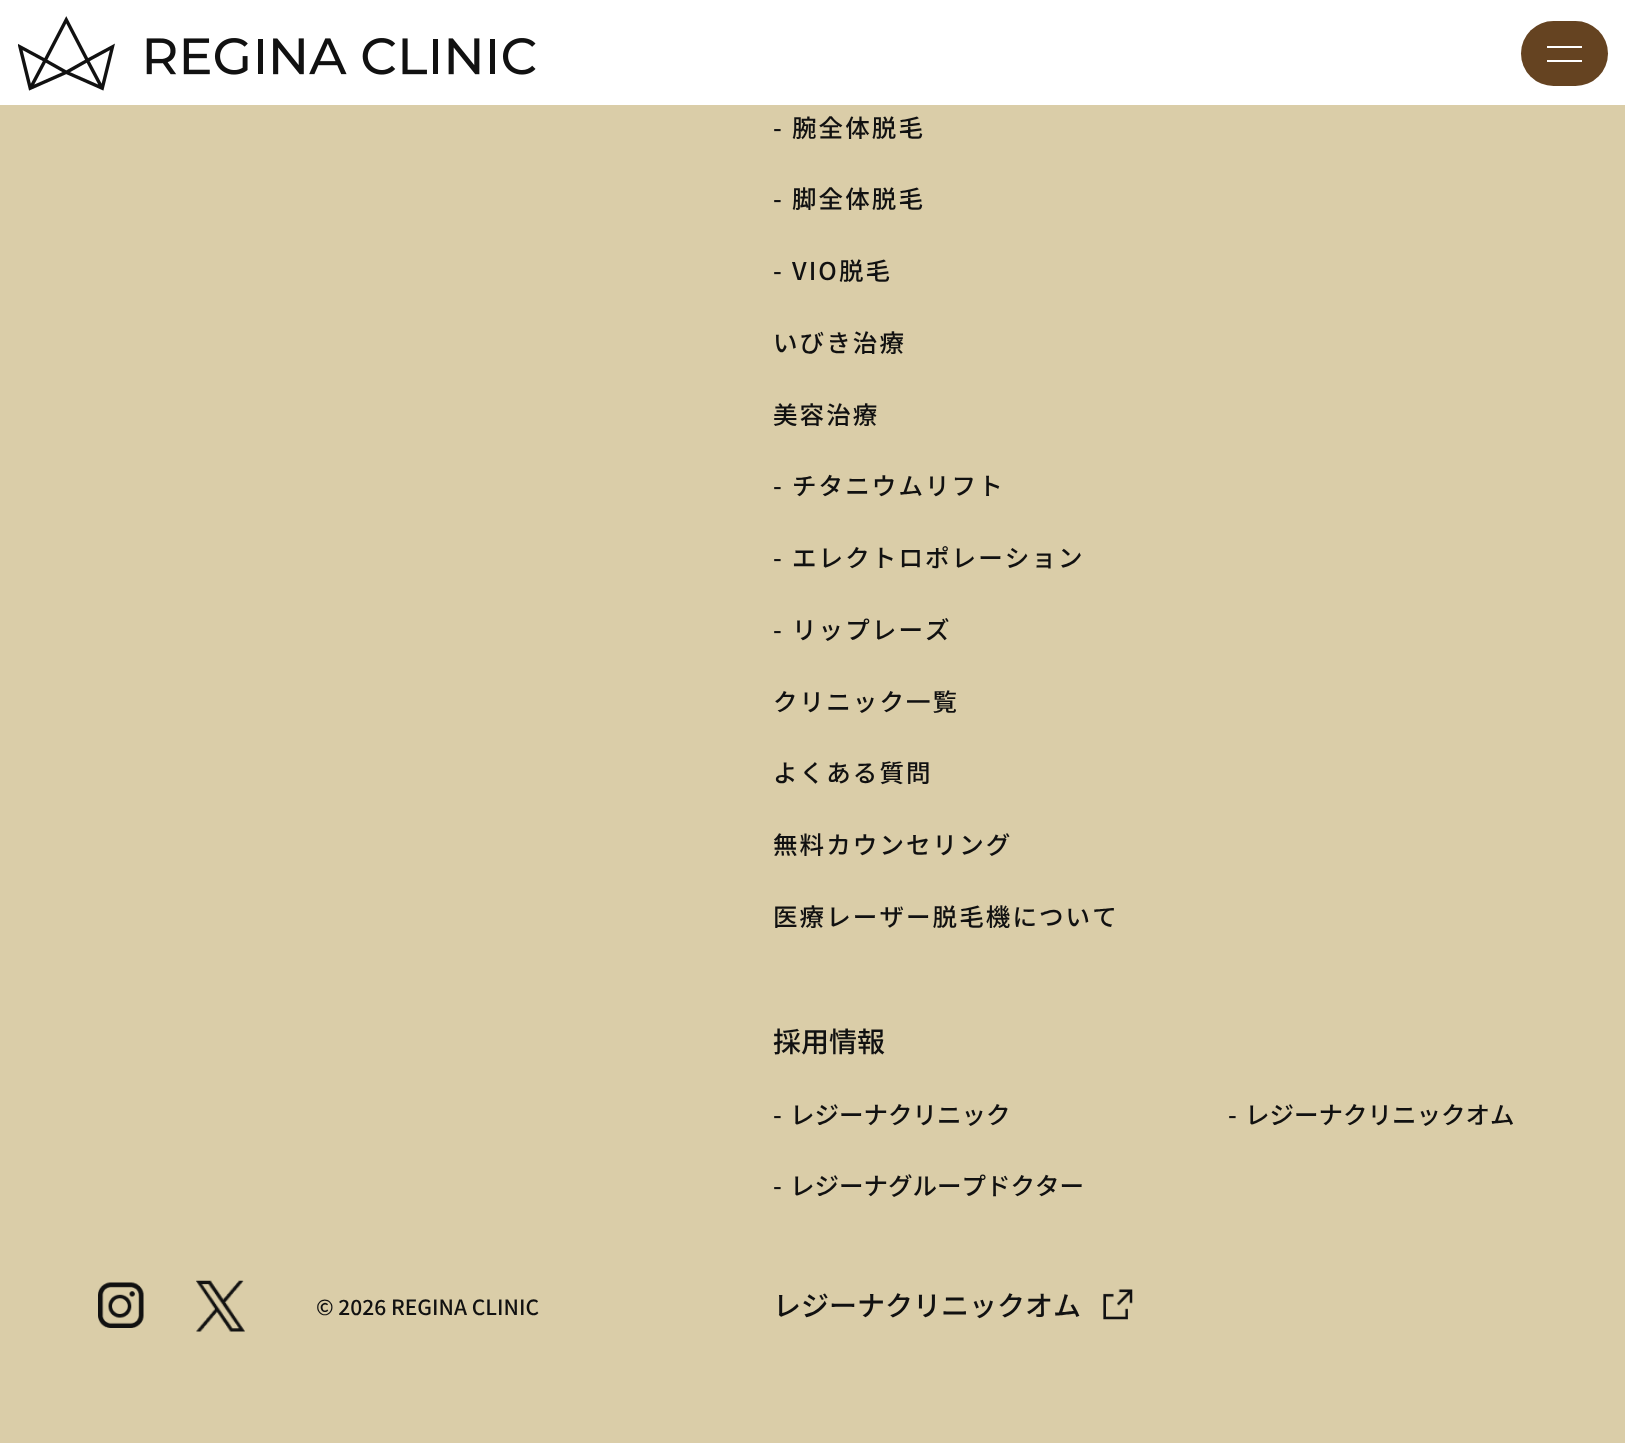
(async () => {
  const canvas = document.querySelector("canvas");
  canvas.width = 1625;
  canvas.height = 1443;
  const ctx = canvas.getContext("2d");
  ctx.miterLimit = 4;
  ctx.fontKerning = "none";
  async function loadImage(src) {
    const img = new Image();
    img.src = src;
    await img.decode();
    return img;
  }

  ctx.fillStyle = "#dacda8";
  ctx.fillRect(0, 0, 1625, 1443);
  ctx.fillStyle = "#ffffff";
  ctx.fillRect(0, 0, 1625, 105);
  ctx.drawImage(await loadImage("img/1.png"), 18, 16, 518, 75);
  ctx.fillStyle = "#654321";
  ctx.beginPath();
  ctx.roundRect(1521, 21, 87, 65, 32.5);
  ctx.fill();
  ctx.fillStyle = "#ffffff";
  ctx.fillRect(1547, 46, 35, 2);
  ctx.fillRect(1547, 60, 35, 2);
  ctx.drawImage(await loadImage("img/2.png"), 98, 1282, 46, 46);
  ctx.drawImage(await loadImage("img/3.png"), 196, 1280, 49, 52);
  ctx.drawImage(await loadImage("img/4.png"), 1103, 1289, 30, 31);
  ctx.font = "500 21px Noto Sans JP";
  ctx.fillStyle = "#111111";
  ctx.fillText("© 2026 REGINA CLINIC", 316, 1315);
  ctx.letterSpacing = "2.1px";
  ctx.font = "500 24.5px Noto Sans JP";
  for (const [text, x, y] of [
    ["-", 773, 137],
    ["腕全体脱毛", 792, 137],
    ["-", 773, 208],
    ["脚全体脱毛", 792, 208],
    ["-", 773, 280],
    ["VIO脱毛", 792, 280],
    ["いびき治療", 773, 352],
    ["美容治療", 773, 424],
    ["-", 773, 495],
    ["チタニウムリフト", 792, 495],
    ["-", 773, 567],
    ["エレクトロポレーション", 792, 567],
    ["-", 773, 639],
    ["リップレーズ", 792, 639],
    ["クリニック一覧", 773, 711],
    ["よくある質問", 773, 782],
    ["無料カウンセリング", 773, 854],
    ["医療レーザー脱毛機について", 773, 926],
  ]) {
    ctx.fillText(text, x, y);
  }
  ctx.letterSpacing = "0px";
  ctx.font = "500 28px Noto Sans JP";
  ctx.fillText("採用情報", 773, 1052);
  ctx.font = "500 24.5px Noto Sans JP";
  for (const [text, x, y] of [
    ["-", 773, 1124],
    ["レジーナクリニック", 790, 1124],
    ["-", 1228, 1124],
    ["レジーナクリニックオム", 1245, 1124],
    ["-", 773, 1195],
    ["レジーナグループドクター", 790, 1195],
  ]) {
    ctx.fillText(text, x, y);
  }
  ctx.font = "500 28px Noto Sans JP";
  ctx.fillText("レジーナクリニックオム", 773, 1316);
})();
